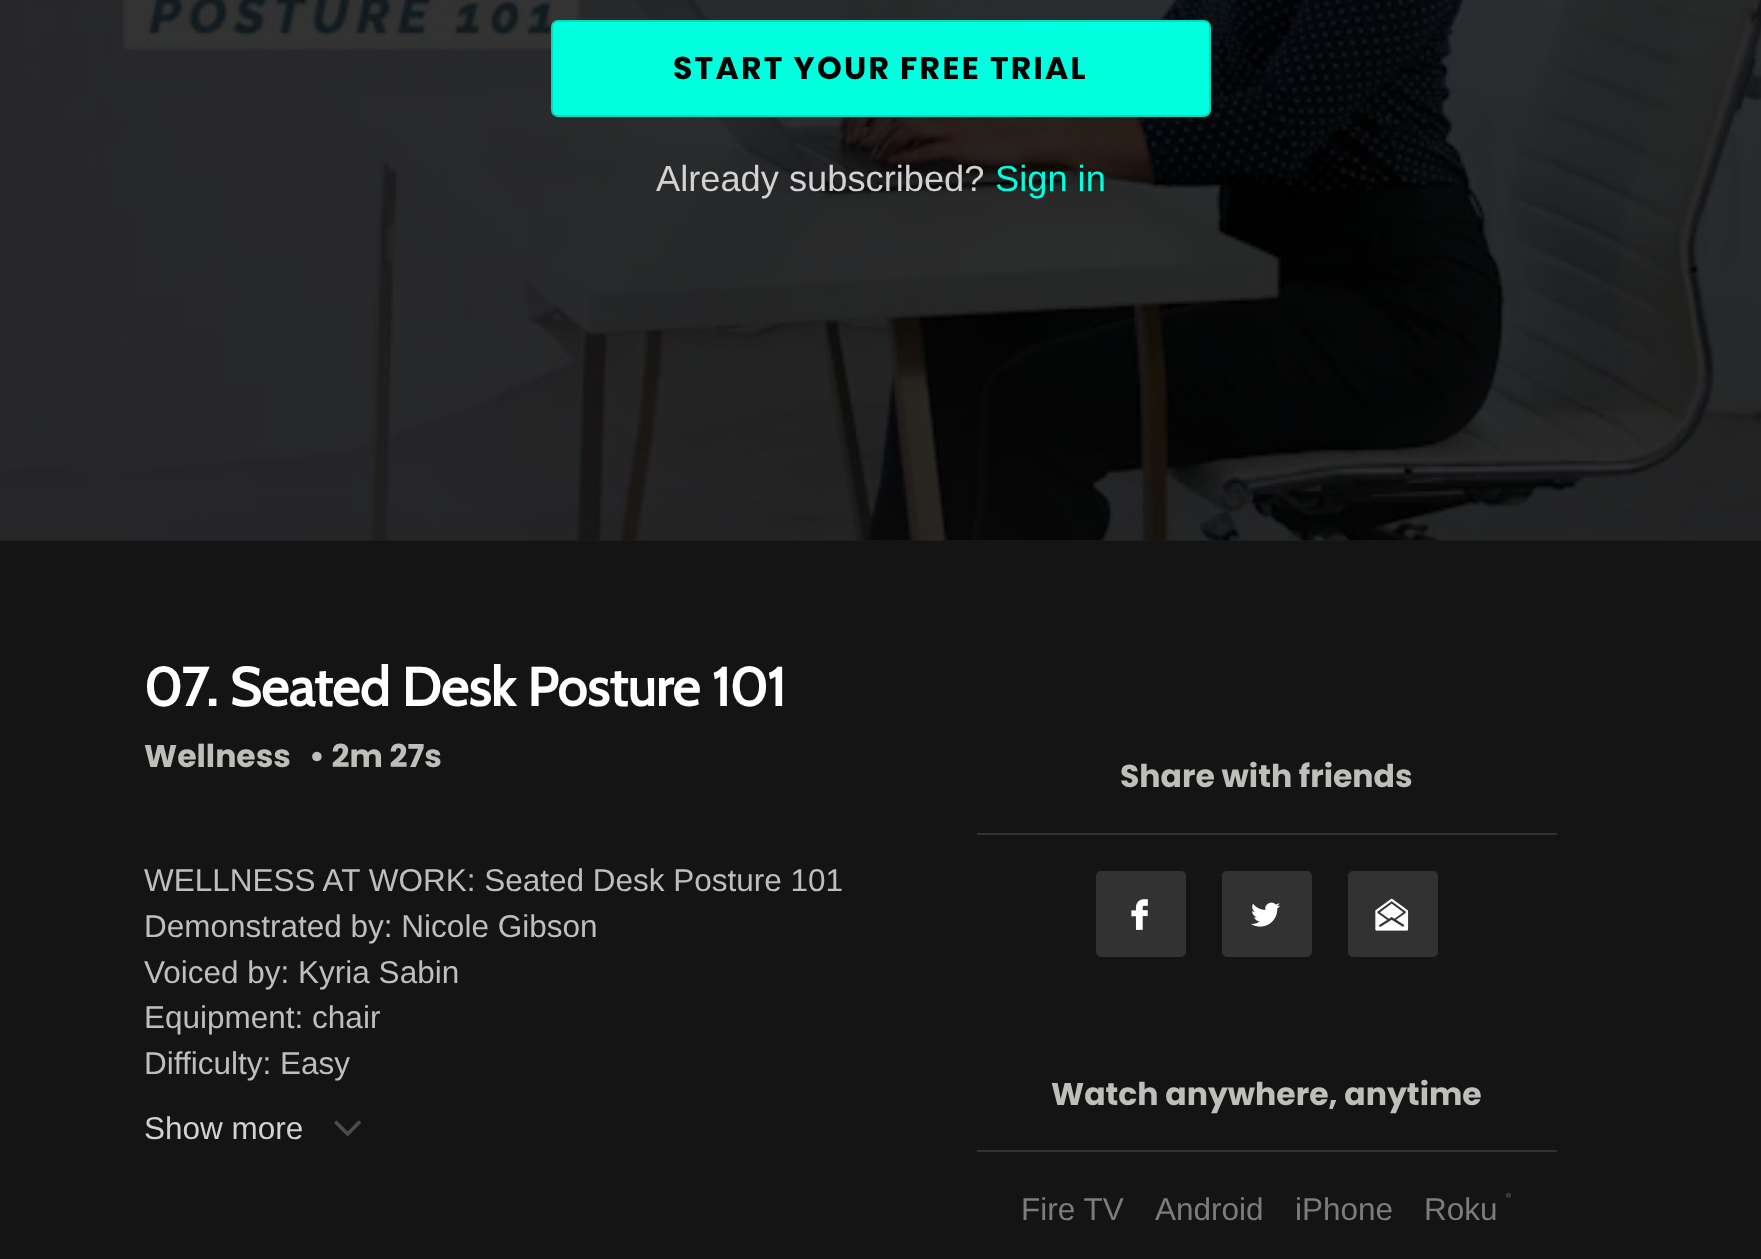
(async () => {
  const canvas = document.querySelector("canvas");
  canvas.width = 1761;
  canvas.height = 1259;
  const ctx = canvas.getContext("2d");
  ctx.miterLimit = 4;
  ctx.fontKerning = "normal";
  async function loadImage(src) {
    const img = new Image();
    img.src = src;
    await img.decode();
    return img;
  }

  ctx.fillStyle = "#141414";
  ctx.fillRect(0, 0, 1761, 1259);
  ctx.drawImage(await loadImage("img/1.png"), 0, 0, 1761, 541);
  ctx.fillStyle = "#00ffde";
  ctx.beginPath();
  ctx.roundRect(552, 21, 658, 95, 6);
  ctx.fill();
  ctx.strokeStyle = "#00d9bd";
  ctx.lineWidth = 2;
  ctx.stroke();
  ctx.drawImage(await loadImage("img/2.png"), 334, 1120, 27, 16);
  ctx.fillStyle = "#323232";
  ctx.fillRect(977, 833, 580, 2);
  ctx.beginPath();
  ctx.roundRect(1094, 869, 94, 90, 7);
  ctx.fill();
  ctx.drawImage(await loadImage("img/3.png"), 1131, 899, 17, 31);
  ctx.beginPath();
  ctx.roundRect(1095, 870, 92, 88, 6);
  ctx.strokeStyle = "#141414";
  ctx.stroke();
  ctx.beginPath();
  ctx.roundRect(1220, 869, 94, 90, 7);
  ctx.fill();
  ctx.drawImage(await loadImage("img/4.png"), 1251, 902, 30, 25);
  ctx.beginPath();
  ctx.roundRect(1221, 870, 92, 88, 6);
  ctx.stroke();
  ctx.beginPath();
  ctx.roundRect(1346, 869, 94, 90, 7);
  ctx.fill();
  ctx.drawImage(await loadImage("img/5.png"), 1375, 898, 34, 33);
  ctx.beginPath();
  ctx.roundRect(1347, 870, 92, 88, 6);
  ctx.stroke();
  ctx.fillRect(977, 1150, 580, 2);
  ctx.letterSpacing = "2.25px";
  ctx.font = "bold 31.5px Poppins";
  ctx.fillStyle = "#000000";
  ctx.fillText("START YOUR FREE TRIAL", 673, 79);
  ctx.letterSpacing = "0px";
  ctx.font = "36.25px Liberation Sans";
  ctx.fillStyle = "#d2d2d2";
  ctx.fillText("Already subscribed?", 656, 191);
  ctx.fillStyle = "#00ffde";
  ctx.fillText("Sign in", 995, 191);
  ctx.font = "bold 54px Cabin";
  ctx.fillStyle = "#ffffff";
  ctx.fillText("07. Seated Desk Posture 101", 144, 706);
  ctx.font = "bold 31.5px Poppins";
  ctx.fillStyle = "#bebebb";
  ctx.fillText("Wellness", 144, 767);
  ctx.fillText("• 2m 27s", 309, 767);
  ctx.font = "31.5px Liberation Sans";
  for (const [text, x, y] of [
    ["WELLNESS AT WORK: Seated Desk Posture 101", 144, 891],
    ["Demonstrated by: Nicole Gibson", 144, 937],
    ["Voiced by: Kyria Sabin", 144, 983],
    ["Equipment: chair", 144, 1028],
    ["Difficulty: Easy", 144, 1074],
  ]) {
    ctx.fillText(text, x, y);
  }
  ctx.fillStyle = "#d2d2d2";
  ctx.fillText("Show more", 144, 1139);
  ctx.font = "bold 31.5px Poppins";
  ctx.fillStyle = "#bebebb";
  ctx.fillText("Share with friends", 1120, 787);
  ctx.fillText("Watch anywhere, anytime", 1051, 1105);
  ctx.font = "7px Liberation Sans";
  ctx.fillStyle = "#7c7c7c";
  ctx.fillText("®", 1506, 1198);
  ctx.font = "31.5px Liberation Sans";
  for (const [text, x, y] of [
    ["Fire TV", 1021, 1220],
    ["Android", 1155, 1220],
    ["iPhone", 1295, 1220],
    ["Roku", 1424, 1220],
  ]) {
    ctx.fillText(text, x, y);
  }
})();
